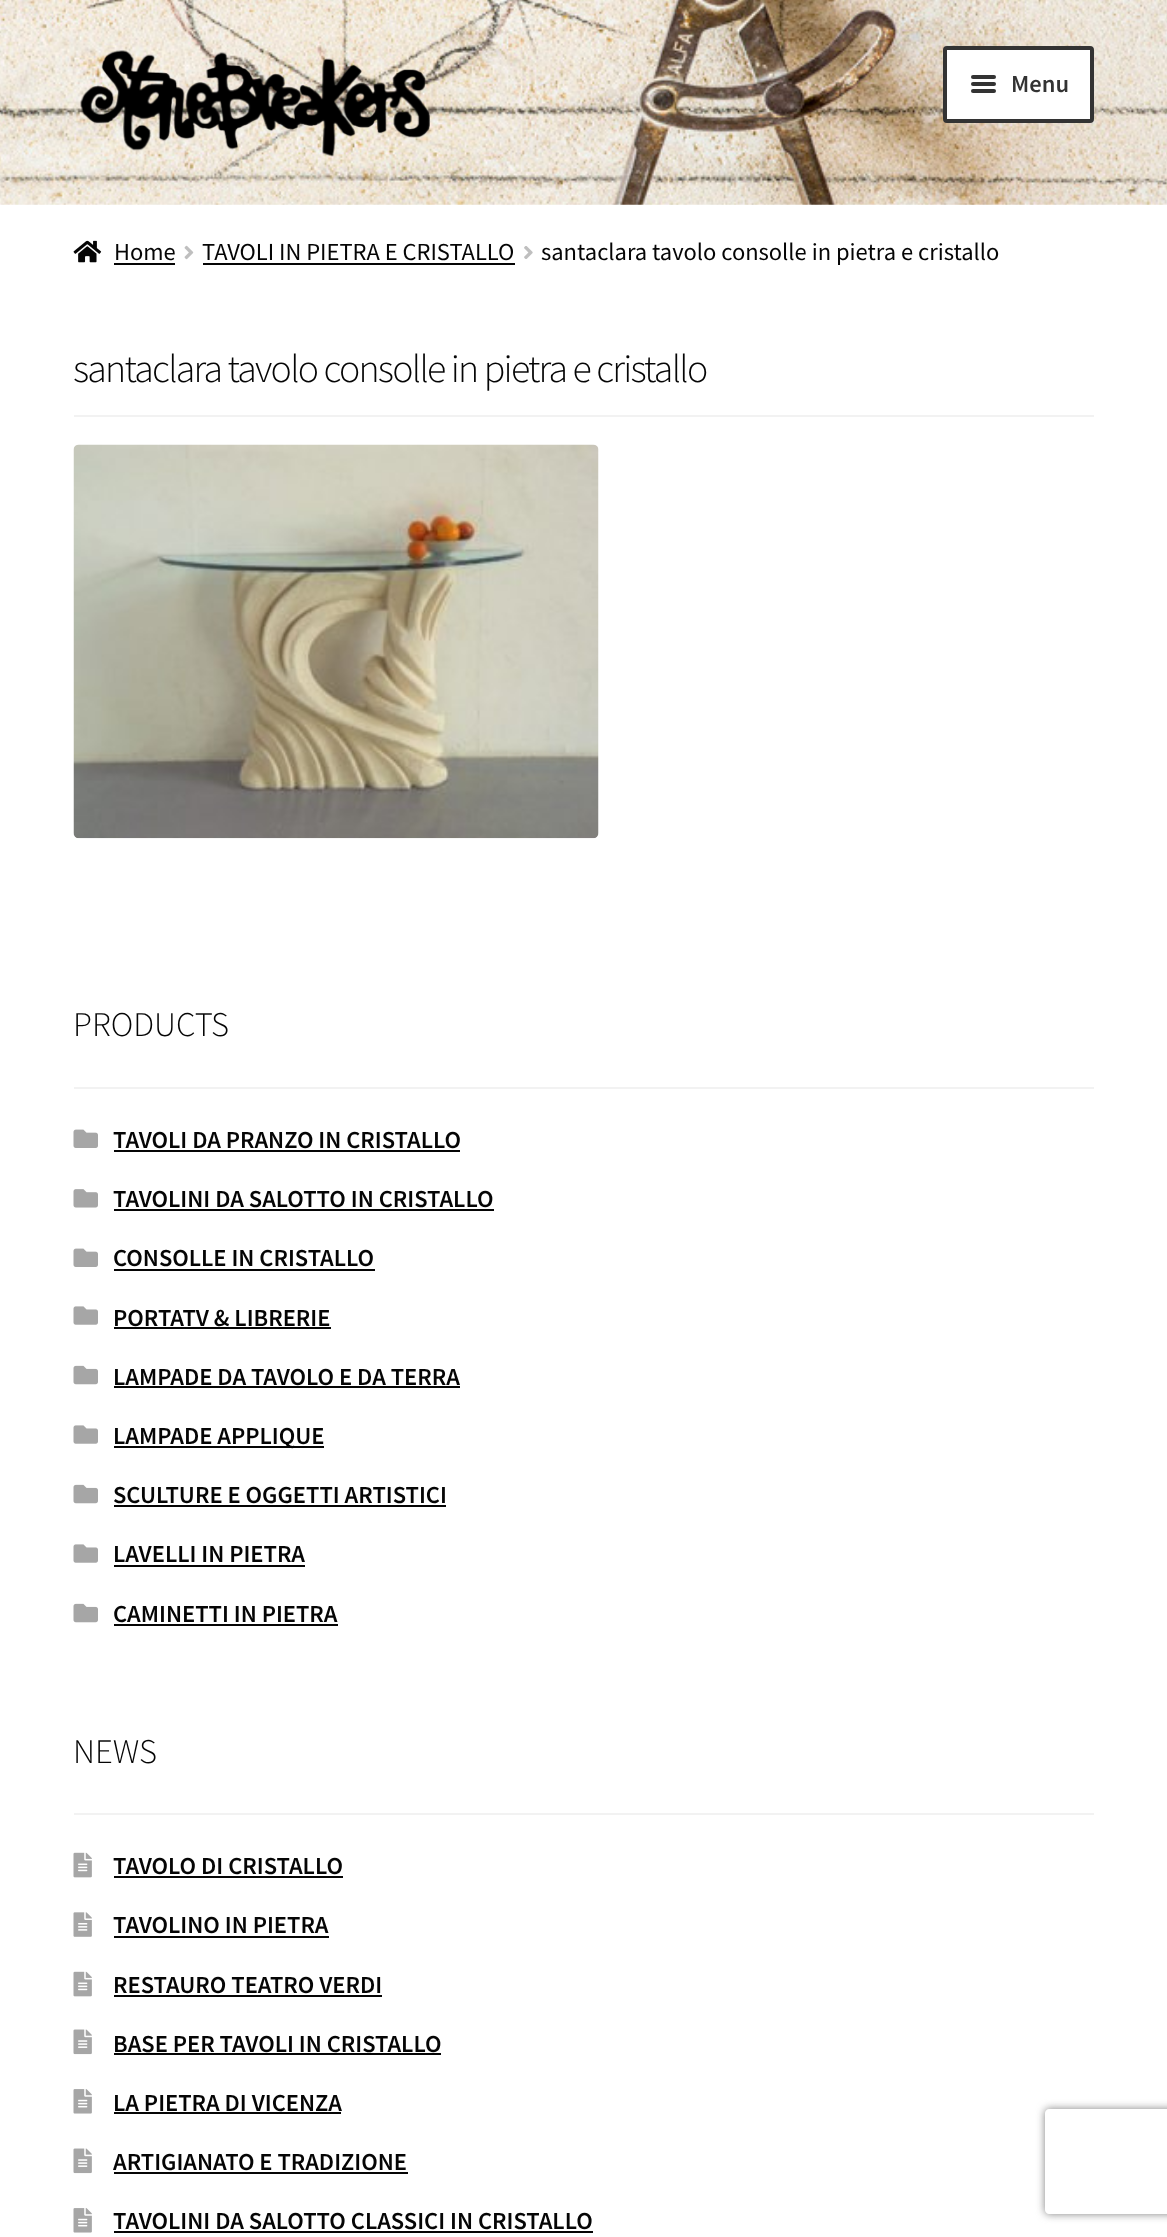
(async () => {
  const canvas = document.querySelector("canvas");
  canvas.width = 1167;
  canvas.height = 2237;
  const ctx = canvas.getContext("2d");
  ctx.miterLimit = 4;
  ctx.fontKerning = "normal";
  async function loadImage(src) {
    const img = new Image();
    img.src = src;
    await img.decode();
    return img;
  }
  let path;

  ctx.fillStyle = "#ffffff";
  ctx.fillRect(0, 0, 1167, 2237);
  ctx.drawImage(await loadImage("img/1.png"), 0, 0, 1167, 205);
  ctx.drawImage(await loadImage("img/2.png"), 80, 50, 350, 107);
  ctx.beginPath();
  ctx.roundRect(945, 48, 147, 73, 2);
  ctx.fill();
  ctx.strokeStyle = "#333333";
  ctx.lineWidth = 4;
  ctx.stroke();
  ctx.fillStyle = "#333333";
  ctx.beginPath();
  ctx.roundRect(971, 75, 25, 4, 2);
  ctx.fill();
  ctx.beginPath();
  ctx.roundRect(971, 82, 25, 4, 2);
  ctx.fill();
  ctx.beginPath();
  ctx.roundRect(971, 89, 25, 4, 2);
  ctx.fill();
  ctx.drawImage(await loadImage("img/3.png"), 73, 240, 29, 23);
  ctx.fillStyle = "#050505";
  ctx.fillRect(114, 263, 61, 2);
  ctx.drawImage(await loadImage("img/4.png"), 184, 245, 10, 15);
  ctx.fillRect(203, 263, 312, 2);
  ctx.drawImage(await loadImage("img/5.png"), 524, 246, 9, 13);
  ctx.fillStyle = "#f2f2f2";
  ctx.fillRect(74, 415, 1020, 2);
  ctx.drawImage(await loadImage("img/6.png"), 73, 444, 526, 395);
  ctx.fillRect(74, 1087, 1020, 2);
  ctx.drawImage(await loadImage("img/7.png"), 73, 1129, 25, 19);
  ctx.fillStyle = "#050505";
  ctx.fillRect(114, 1150, 346, 2);
  ctx.drawImage(await loadImage("img/8.png"), 73, 1189, 25, 19);
  ctx.fillRect(114, 1209, 380, 2);
  ctx.drawImage(await loadImage("img/7.png"), 73, 1248, 25, 19);
  ctx.fillRect(114, 1269, 261, 2);
  ctx.drawImage(await loadImage("img/9.png"), 73, 1306, 25, 19);
  ctx.fillRect(114, 1327, 217, 2);
  ctx.drawImage(await loadImage("img/10.png"), 73, 1365, 25, 20);
  ctx.fillRect(114, 1386, 346, 2);
  ctx.drawImage(await loadImage("img/9.png"), 73, 1425, 25, 19);
  ctx.fillRect(114, 1446, 210, 2);
  ctx.drawImage(await loadImage("img/10.png"), 73, 1484, 25, 20);
  ctx.fillRect(114, 1505, 332, 2);
  ctx.drawImage(await loadImage("img/9.png"), 73, 1544, 25, 19);
  ctx.fillRect(114, 1565, 191, 2);
  ctx.drawImage(await loadImage("img/10.png"), 73, 1603, 25, 20);
  ctx.fillRect(114, 1624, 224, 2);
  ctx.fillStyle = "#f2f2f2";
  ctx.fillRect(74, 1813, 1020, 2);
  ctx.drawImage(await loadImage("img/11.png"), 73, 1852, 19, 26);
  ctx.fillStyle = "#050505";
  ctx.fillRect(114, 1876, 229, 2);
  ctx.drawImage(await loadImage("img/12.png"), 73, 1912, 19, 25);
  ctx.fillRect(114, 1936, 215, 2);
  ctx.drawImage(await loadImage("img/11.png"), 73, 1971, 19, 26);
  ctx.fillRect(114, 1995, 268, 2);
  ctx.drawImage(await loadImage("img/13.png"), 73, 2029, 19, 26);
  ctx.fillRect(114, 2053, 327, 2);
  ctx.drawImage(await loadImage("img/14.png"), 73, 2089, 19, 25);
  ctx.fillRect(114, 2112, 227, 2);
  ctx.drawImage(await loadImage("img/13.png"), 73, 2148, 19, 26);
  ctx.fillRect(114, 2172, 294, 2);
  ctx.drawImage(await loadImage("img/14.png"), 73, 2208, 19, 25);
  ctx.fillRect(114, 2231, 479, 2);
  ctx.save();
  path = new Path2D("M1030 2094H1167V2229H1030ZM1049 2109H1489C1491 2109 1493 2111 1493 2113V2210C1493 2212 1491 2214 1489 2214H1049C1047 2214 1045 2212 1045 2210V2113C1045 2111 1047 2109 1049 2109Z");
  ctx.clip(path, "evenodd");
  ctx.fillStyle = "#808080";
  ctx.filter = "blur(4.5px)";
  ctx.beginPath();
  ctx.roundRect(1045, 2109, 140, 105, 4);
  ctx.fill();
  ctx.filter = "none";
  ctx.restore();
  ctx.font = "600 24.5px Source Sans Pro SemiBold";
  ctx.fillStyle = "#333333";
  ctx.fillText("Menu", 1011, 92);
  ctx.font = "24.5px Source Sans Pro";
  ctx.fillStyle = "#050505";
  for (const [text, x, y] of [
    ["Home", 114, 260],
    ["TAVOLI IN PIETRA E CRISTALLO", 202, 260],
    ["santaclara tavolo consolle in pietra e cristallo", 541, 260],
  ]) {
    ctx.fillText(text, x, y);
  }
  ctx.letterSpacing = "-1.75px";
  ctx.font = "300 39.75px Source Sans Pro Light";
  ctx.fillText("santaclara tavolo consolle in pietra e cristallo", 73, 382);
  ctx.letterSpacing = "0px";
  ctx.font = "300 34.5px Source Sans Pro Light";
  ctx.fillText("PRODUCTS", 73, 1036);
  ctx.font = "600 24.5px Source Sans Pro SemiBold";
  for (const [text, x, y] of [
    ["TAVOLI DA PRANZO IN CRISTALLO", 113, 1148],
    ["TAVOLINI DA SALOTTO IN CRISTALLO", 113, 1207],
    ["CONSOLLE IN CRISTALLO", 113, 1266],
    ["PORTATV & LIBRERIE", 113, 1326],
    ["LAMPADE DA TAVOLO E DA TERRA", 113, 1385],
    ["LAMPADE APPLIQUE", 113, 1444],
    ["SCULTURE E OGGETTI ARTISTICI", 113, 1503],
    ["LAVELLI IN PIETRA", 113, 1562],
    ["CAMINETTI IN PIETRA", 113, 1622],
  ]) {
    ctx.fillText(text, x, y);
  }
  ctx.font = "300 34.5px Source Sans Pro Light";
  ctx.fillText("NEWS", 73, 1763);
  ctx.font = "600 24.5px Source Sans Pro SemiBold";
  for (const [text, x, y] of [
    ["TAVOLO DI CRISTALLO", 113, 1874],
    ["TAVOLINO IN PIETRA", 113, 1933],
    ["RESTAURO TEATRO VERDI", 113, 1993],
    ["BASE PER TAVOLI IN CRISTALLO", 113, 2052],
    ["LA PIETRA DI VICENZA", 113, 2111],
    ["ARTIGIANATO E TRADIZIONE", 113, 2170],
    ["TAVOLINI DA SALOTTO CLASSICI IN CRISTALLO", 113, 2229],
  ]) {
    ctx.fillText(text, x, y);
  }
})();
